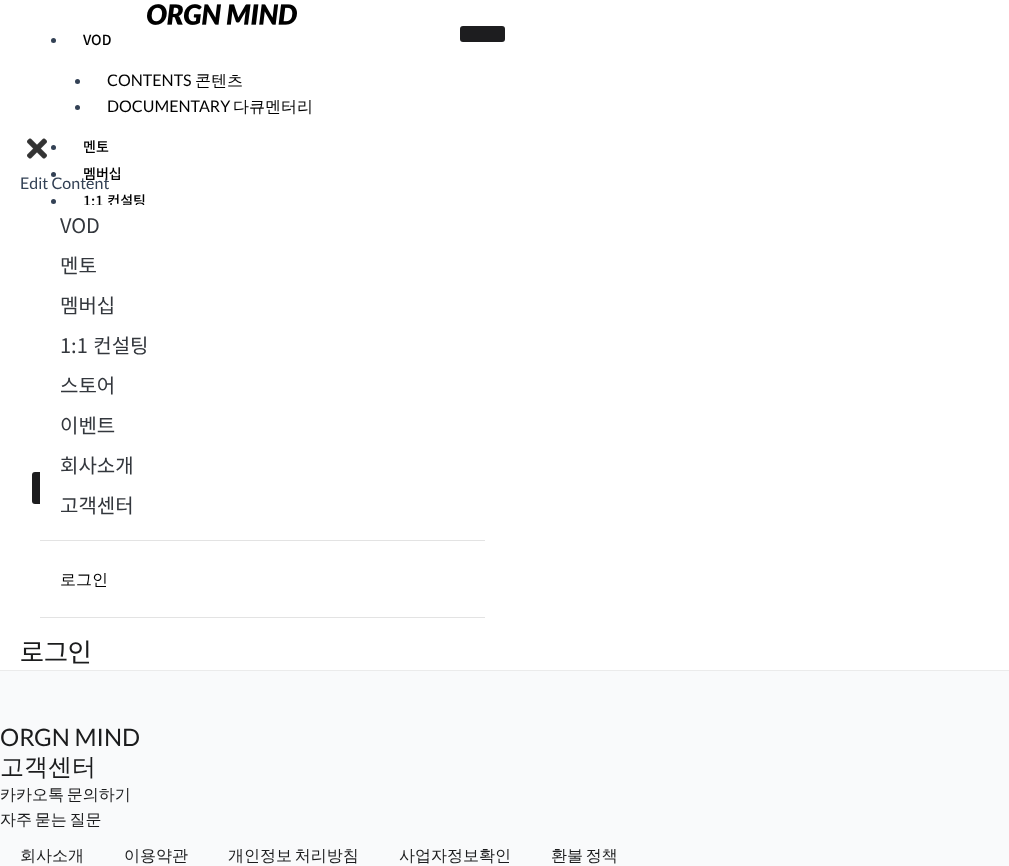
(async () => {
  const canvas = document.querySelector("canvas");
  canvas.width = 1009;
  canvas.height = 866;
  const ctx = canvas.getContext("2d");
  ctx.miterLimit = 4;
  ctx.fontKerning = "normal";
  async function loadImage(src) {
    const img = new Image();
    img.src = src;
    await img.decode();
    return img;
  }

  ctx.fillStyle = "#f9fafb";
  ctx.fillRect(0, 0, 1009, 866);
  ctx.fillStyle = "#ffffff";
  ctx.fillRect(0, 0, 1009, 670);
  ctx.fillStyle = "#ebebeb";
  ctx.fillRect(0, 670, 1009, 1);
  ctx.drawImage(await loadImage("img/1.png"), 147, 4, 150, 21);
  ctx.fillStyle = "#334155";
  ctx.beginPath();
  ctx.arc(53.5, 40.5, 2.5, 0, Math.PI * 2);
  ctx.fill();
  ctx.beginPath();
  ctx.arc(77.5, 81.5, 2.5, 0, Math.PI * 2);
  ctx.fill();
  ctx.beginPath();
  ctx.arc(77.5, 107.5, 2.5, 0, Math.PI * 2);
  ctx.fill();
  ctx.beginPath();
  ctx.arc(53.5, 147.5, 2.5, 0, Math.PI * 2);
  ctx.fill();
  ctx.beginPath();
  ctx.arc(53.5, 174.5, 2.5, 0, Math.PI * 2);
  ctx.fill();
  ctx.beginPath();
  ctx.arc(53.5, 201.5, 2.5, 0, Math.PI * 2);
  ctx.fill();
  ctx.fillStyle = "#1d1d1f";
  ctx.beginPath();
  ctx.roundRect(32, 472, 45, 32, 3);
  ctx.fill();
  ctx.beginPath();
  ctx.roundRect(460, 26, 45, 16, 3);
  ctx.fill();
  ctx.drawImage(await loadImage("img/2.png"), 27, 138, 20, 21);
  ctx.fillStyle = "#e3e3e3";
  ctx.fillRect(40, 540, 445, 1);
  ctx.fillRect(40, 617, 445, 1);
  ctx.font = "500 14px Noto Sans KR";
  ctx.fillStyle = "#000000";
  ctx.fillText("VOD", 83, 45);
  ctx.font = "16px Lato";
  ctx.fillText("CONTENTS", 107, 86);
  ctx.font = "500 16px WenQuanYi Zen Hei";
  ctx.fillText("콘텐츠", 195, 86);
  ctx.font = "16px Lato";
  ctx.fillText("DOCUMENTARY", 107, 112);
  ctx.font = "500 16px WenQuanYi Zen Hei";
  ctx.fillText("다큐멘터리", 233, 112);
  ctx.font = "500 14px Noto Sans KR";
  ctx.fillText("멘토", 83, 152);
  ctx.fillText("멤버십", 83, 179);
  ctx.wordSpacing = "1px";
  ctx.fillText("1:1 컨설팅", 83, 206);
  ctx.wordSpacing = "0px";
  ctx.font = "16px Lato";
  ctx.fillStyle = "#334155";
  ctx.fillText("Edit Content", 20, 189);
  ctx.fillStyle = "#ffffff";
  ctx.fillRect(40, 205, 105, 299);
  ctx.font = "20px Noto Sans KR";
  ctx.fillStyle = "#33373d";
  for (const [text, x, y] of [
    ["VOD", 60, 233],
    ["멘토", 60, 273],
    ["멤버십", 60, 313],
  ]) {
    ctx.fillText(text, x, y);
  }
  ctx.wordSpacing = "1px";
  ctx.fillText("1:1 컨설팅", 60, 353);
  ctx.wordSpacing = "0px";
  for (const [text, x, y] of [
    ["스토어", 60, 393],
    ["이벤트", 60, 433],
    ["회사소개", 60, 473],
    ["고객센터", 60, 513],
  ]) {
    ctx.fillText(text, x, y);
  }
  ctx.font = "500 16px WenQuanYi Zen Hei";
  ctx.fillStyle = "#000000";
  ctx.fillText("로그인", 60, 585);
  ctx.font = "26px Noto Sans KR";
  ctx.fillStyle = "#1b1c1d";
  ctx.fillText("로그인", 20, 662);
  ctx.font = "24px Lato";
  ctx.fillText("ORGN MIND", 0, 746);
  ctx.font = "500 24px WenQuanYi Zen Hei";
  ctx.fillText("고객센터", 0, 775);
  ctx.wordSpacing = "-2px";
  ctx.font = "500 16px WenQuanYi Zen Hei";
  ctx.fillText("카카오톡 문의하기", 0, 800);
  ctx.fillText("자주 묻는 질문", 0, 825);
  ctx.wordSpacing = "0px";
  ctx.fillText("회사소개", 20, 861);
  ctx.fillText("이용약관", 124, 861);
  ctx.wordSpacing = "-2px";
  ctx.fillText("개인정보 처리방침", 228, 861);
  ctx.wordSpacing = "0px";
  ctx.fillText("사업자정보확인", 399, 861);
  ctx.wordSpacing = "-2px";
  ctx.fillText("환불 정책", 551, 861);
})();
